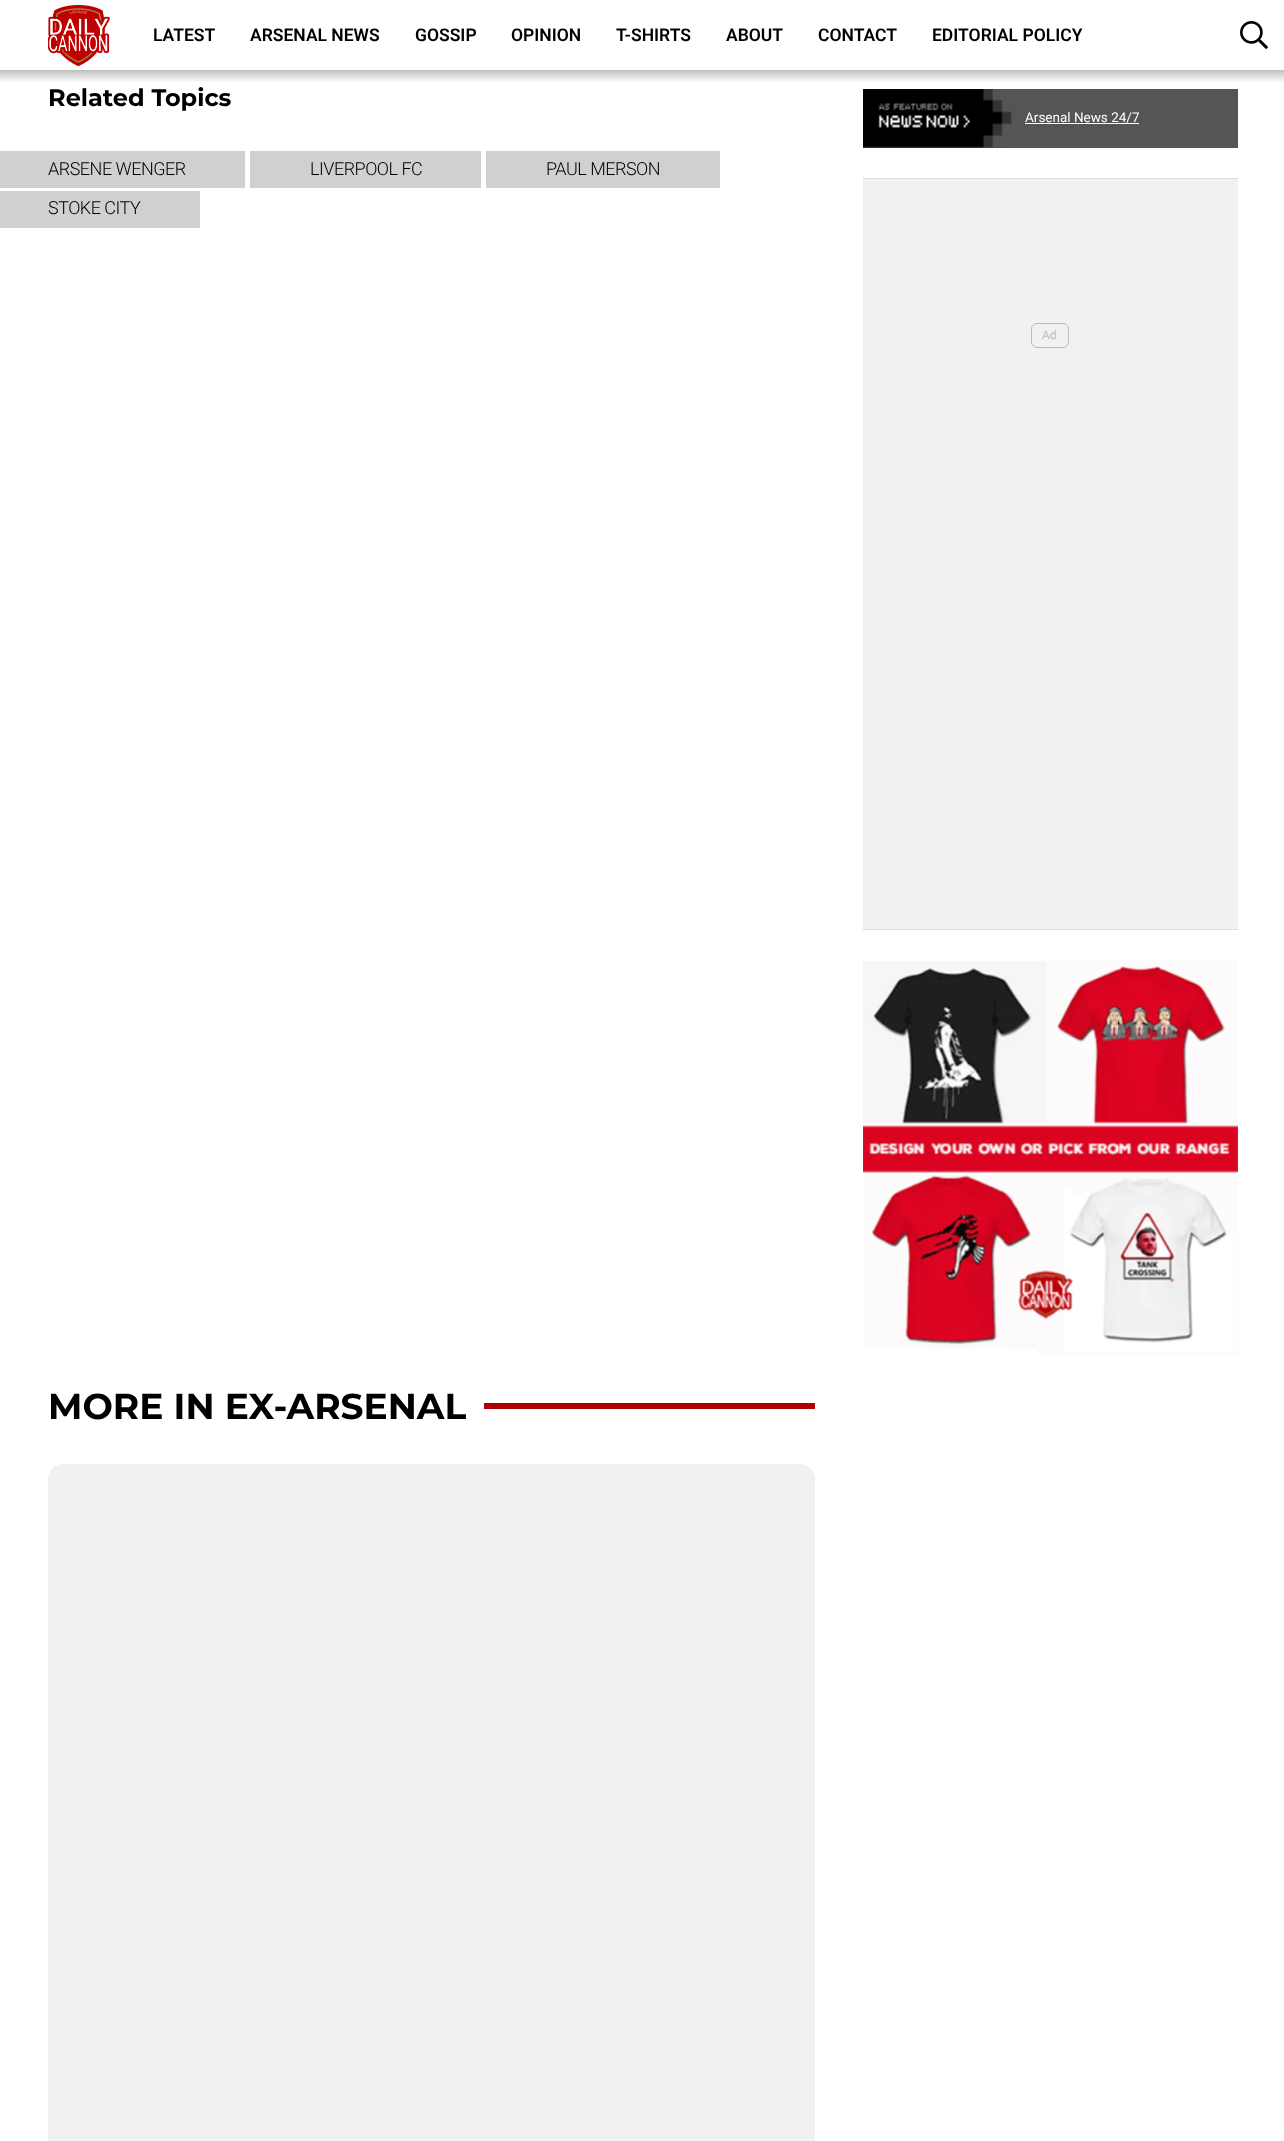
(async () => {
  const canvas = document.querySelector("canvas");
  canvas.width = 1284;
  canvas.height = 2141;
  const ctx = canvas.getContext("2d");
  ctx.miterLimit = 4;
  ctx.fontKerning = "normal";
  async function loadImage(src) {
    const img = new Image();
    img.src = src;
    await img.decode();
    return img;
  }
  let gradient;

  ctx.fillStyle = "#ffffff";
  ctx.fillRect(0, 0, 1284, 2141);
  ctx.drawImage(await loadImage("img/1.png"), 48, 5, 62, 61);
  ctx.drawImage(await loadImage("img/2.png"), 1240, 21, 28, 28);
  gradient = ctx.createLinearGradient(643, 70, 643, 83);
  gradient.addColorStop(0, "#bfbfbf");
  gradient.addColorStop(1, "#ffffff");
  ctx.fillStyle = gradient;
  ctx.fillRect(0, 70, 1284, 12);
  for (const [x, y, w, h, color] of [
    [0, 151, 245, 37, "#d0d0d0"],
    [250, 151, 231, 37, "#d0d0d0"],
    [486, 151, 234, 37, "#d0d0d0"],
    [0, 191, 200, 37, "#d0d0d0"],
    [484, 1403, 331, 6, "#af0005"],
  ]) {
    ctx.fillStyle = color;
    ctx.fillRect(x, y, w, h);
  }
  ctx.fillStyle = "#f1f1f1";
  ctx.beginPath();
  ctx.roundRect(48, 1464, 767, 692, 15);
  ctx.fill();
  ctx.fillStyle = "#555555";
  ctx.fillRect(863, 89, 375, 59);
  ctx.drawImage(await loadImage("img/3.png"), 863, 89, 149, 59);
  for (const [x, y, w, h, color] of [
    [1025, 123, 114, 1, "#ffffff"],
    [863, 179, 375, 750, "#f1f1f1"],
    [863, 178, 375, 1, "#dddddd"],
    [863, 929, 375, 1, "#dddddd"],
  ]) {
    ctx.fillStyle = color;
    ctx.fillRect(x, y, w, h);
  }
  ctx.beginPath();
  ctx.roundRect(1031.5, 323.5, 37, 24, 5.5);
  ctx.strokeStyle = "#bbbbbb";
  ctx.stroke();
  ctx.drawImage(await loadImage("img/4.png"), 863, 960, 375, 394);
  ctx.font = "600 17.5px Roboto";
  ctx.fillStyle = "#000000";
  for (const [text, x, y] of [
    ["LATEST", 153, 41],
    ["ARSENAL NEWS", 250, 41],
    ["GOSSIP", 415, 41],
    ["OPINION", 511, 41],
    ["T-SHIRTS", 616, 41],
    ["ABOUT", 726, 41],
    ["CONTACT", 818, 41],
    ["EDITORIAL POLICY", 932, 41],
  ]) {
    ctx.fillText(text, x, y);
  }
  ctx.font = "bold 24px Montserrat";
  ctx.fillText("Related Topics", 48, 106);
  ctx.letterSpacing = "-0.5px";
  ctx.font = "300 18px Roboto";
  for (const [text, x, y] of [
    ["ARSENE WENGER", 48, 175],
    ["LIVERPOOL FC", 310, 175],
    ["PAUL MERSON", 546, 175],
    ["STOKE CITY", 48, 214],
  ]) {
    ctx.fillText(text, x, y);
  }
  ctx.letterSpacing = "0px";
  ctx.font = "bold 36px Montserrat";
  ctx.fillText("MORE IN EX-ARSENAL", 48, 1419);
  ctx.font = "13.5px Roboto";
  ctx.fillStyle = "#ffffff";
  ctx.fillText("Arsenal News 24/7", 1025, 122);
  ctx.font = "12px Roboto";
  ctx.fillStyle = "#bbbbbb";
  ctx.fillText("Ad", 1042, 339);
})();
